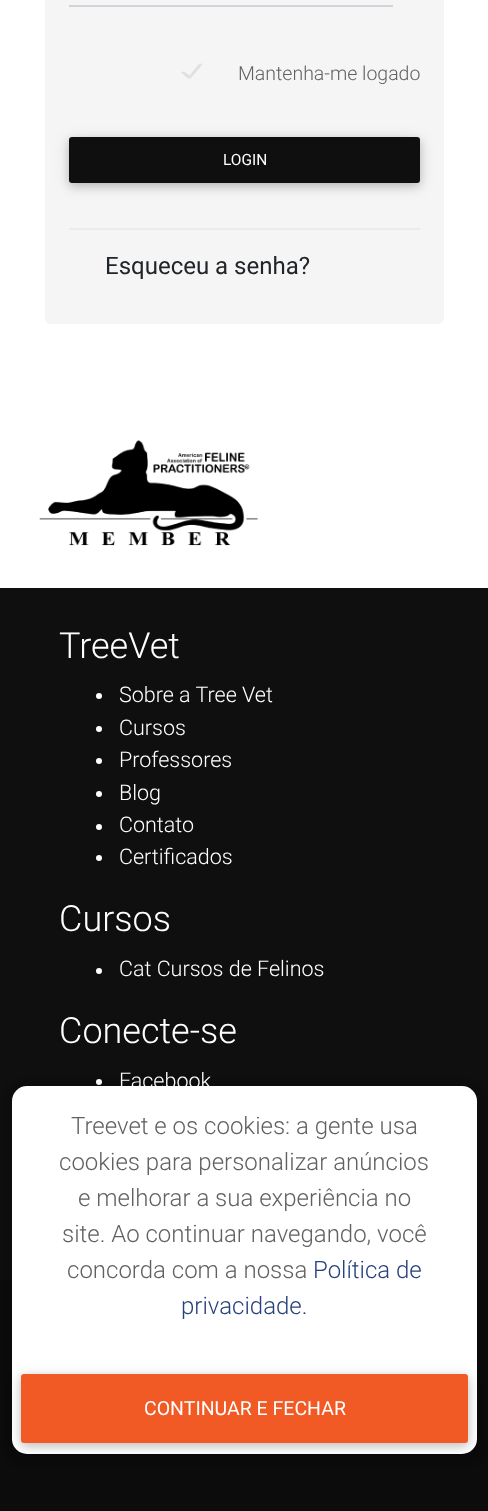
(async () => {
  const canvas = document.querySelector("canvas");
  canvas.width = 488;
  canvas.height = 1511;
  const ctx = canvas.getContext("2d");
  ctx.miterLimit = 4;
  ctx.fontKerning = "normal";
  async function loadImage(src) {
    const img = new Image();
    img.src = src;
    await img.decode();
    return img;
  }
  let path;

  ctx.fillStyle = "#ffffff";
  ctx.fillRect(0, 0, 488, 1511);
  ctx.fillStyle = "#f5f5f5";
  ctx.beginPath();
  ctx.roundRect(45, -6, 399, 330, 6);
  ctx.fill();
  ctx.fillStyle = "#ced4da";
  ctx.fillRect(69, 5, 324, 2);
  ctx.fillStyle = "#e0e0e0";
  path = new Path2D("M202.5 63.5C202.5 65 192 76.5 190.5 78.5L189.5 79V75.5L199 64Z");
  ctx.fill(path);
  path = new Path2D("M181 72.5V72L184.5 71.5L189.5 75.5V79C188 79 182.5 73.5 181 72.5Z");
  ctx.fill(path);
  ctx.fillStyle = "rgba(0, 0, 0, 0.12)";
  ctx.filter = "blur(7.5px)";
  ctx.beginPath();
  ctx.roundRect(69, 140, 351, 46, 3);
  ctx.fill();
  ctx.filter = "none";
  ctx.fillStyle = "rgba(0, 0, 0, 0.16)";
  ctx.filter = "blur(4px)";
  ctx.beginPath();
  ctx.roundRect(69, 140, 351, 46, 3);
  ctx.fill();
  ctx.filter = "none";
  ctx.fillStyle = "#0f0f0f";
  ctx.beginPath();
  ctx.roundRect(69, 137, 351, 46, 3);
  ctx.fill();
  ctx.fillStyle = "#e9ecef";
  ctx.fillRect(69, 228, 351, 2);
  ctx.drawImage(await loadImage("img/1.png"), 39, 440, 220, 106);
  ctx.fillStyle = "#0f0f0f";
  ctx.fillRect(0, 588, 488, 692);
  ctx.fillStyle = "#ffffff";
  ctx.beginPath();
  ctx.arc(99, 696, 3, 0, Math.PI * 2);
  ctx.fill();
  ctx.beginPath();
  ctx.arc(99, 729, 3, 0, Math.PI * 2);
  ctx.fill();
  ctx.beginPath();
  ctx.arc(99, 761, 3, 0, Math.PI * 2);
  ctx.fill();
  ctx.beginPath();
  ctx.arc(99, 794, 3, 0, Math.PI * 2);
  ctx.fill();
  ctx.beginPath();
  ctx.arc(99, 827, 3, 0, Math.PI * 2);
  ctx.fill();
  ctx.beginPath();
  ctx.arc(99, 858, 3, 0, Math.PI * 2);
  ctx.fill();
  ctx.beginPath();
  ctx.arc(99, 971, 3, 0, Math.PI * 2);
  ctx.fill();
  ctx.beginPath();
  ctx.arc(99, 1082, 3, 0, Math.PI * 2);
  ctx.fill();
  ctx.fillStyle = "#0c0c0c";
  ctx.fillRect(0, 1280, 488, 231);
  ctx.fillStyle = "rgba(0, 0, 0, 0.12)";
  ctx.filter = "blur(7.5px)";
  ctx.beginPath();
  ctx.roundRect(12, 1089, 465, 368, 15);
  ctx.fill();
  ctx.filter = "none";
  ctx.fillStyle = "rgba(0, 0, 0, 0.16)";
  ctx.filter = "blur(4px)";
  ctx.beginPath();
  ctx.roundRect(12, 1089, 465, 368, 15);
  ctx.fill();
  ctx.filter = "none";
  ctx.fillStyle = "#ffffff";
  ctx.beginPath();
  ctx.roundRect(12, 1086, 465, 368, 15);
  ctx.fill();
  ctx.fillStyle = "rgba(0, 0, 0, 0.12)";
  ctx.filter = "blur(7.5px)";
  ctx.beginPath();
  ctx.roundRect(21, 1377, 447, 69, 3);
  ctx.fill();
  ctx.filter = "none";
  ctx.fillStyle = "rgba(0, 0, 0, 0.16)";
  ctx.filter = "blur(4px)";
  ctx.beginPath();
  ctx.roundRect(21, 1377, 447, 69, 3);
  ctx.fill();
  ctx.filter = "none";
  ctx.fillStyle = "#f15a24";
  ctx.beginPath();
  ctx.roundRect(21, 1374, 447, 69, 3);
  ctx.fill();
  ctx.font = "300 19.5px Roboto";
  ctx.fillStyle = "#626161";
  ctx.fillText("Mantenha-me logado", 238, 80);
  ctx.font = "15.5px Roboto";
  ctx.fillStyle = "#ffffff";
  ctx.fillText("LOGIN", 223, 165);
  ctx.font = "24px Roboto";
  ctx.fillStyle = "#212529";
  ctx.fillText("Esqueceu a senha?", 105, 274);
  ctx.font = "300 36px Roboto";
  ctx.fillStyle = "#ffffff";
  ctx.fillText("TreeVet", 59, 658);
  ctx.font = "300 21.5px Roboto";
  for (const [text, x, y] of [
    ["Sobre a Tree Vet", 119, 702],
    ["Cursos", 119, 735],
    ["Professores", 119, 767],
    ["Blog", 119, 800],
    ["Contato", 119, 832],
    ["Certificados", 119, 864],
  ]) {
    ctx.fillText(text, x, y);
  }
  ctx.font = "300 36px Roboto";
  ctx.fillText("Cursos", 59, 931);
  ctx.font = "300 21.5px Roboto";
  ctx.fillText("Cat Cursos de Felinos", 119, 976);
  ctx.font = "300 36px Roboto";
  ctx.fillText("Conecte-se", 59, 1043);
  ctx.font = "300 21.5px Roboto";
  ctx.fillText("Facebook", 119, 1088);
  ctx.font = "300 24px Roboto";
  ctx.fillStyle = "#626161";
  for (const [text, x, y] of [
    ["Treevet e os cookies: a gente usa", 71, 1134],
    ["cookies para personalizar anúncios", 59, 1170],
    ["e melhorar a sua experiência no", 78, 1206],
    ["site. Ao continuar navegando, você", 62, 1242],
    ["concorda com a nossa", 67, 1278],
  ]) {
    ctx.fillText(text, x, y);
  }
  ctx.fillStyle = "#27417a";
  ctx.fillText("Política de", 313, 1278);
  ctx.fillText("privacidade.", 181, 1314);
  ctx.font = "19.5px Roboto";
  ctx.fillStyle = "#ffffff";
  ctx.fillText("CONTINUAR E FECHAR", 144, 1415);
})();
